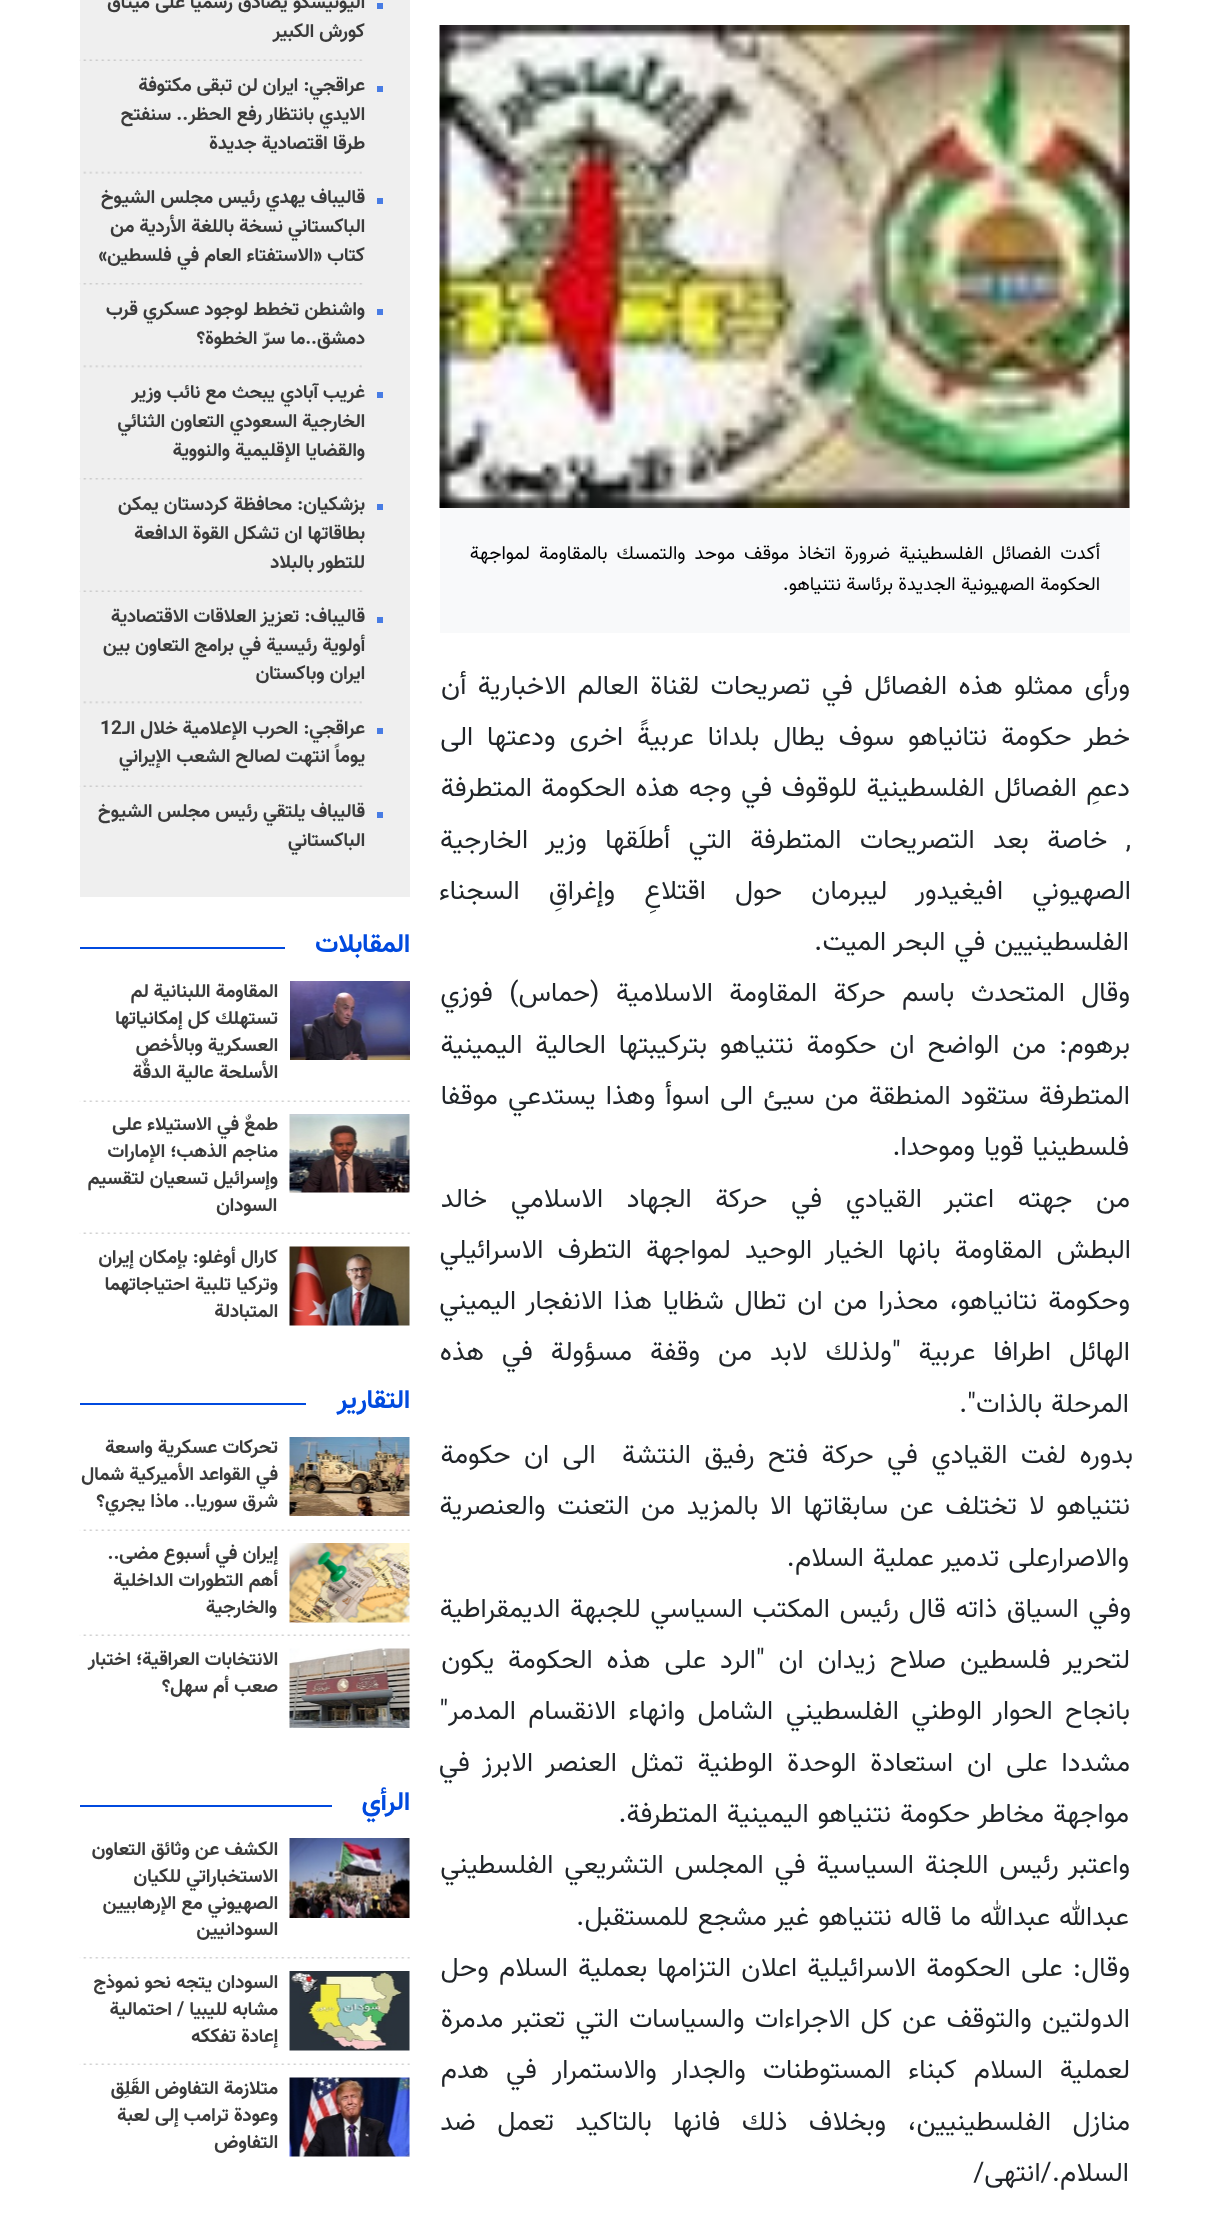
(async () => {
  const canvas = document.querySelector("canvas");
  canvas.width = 1208;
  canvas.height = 2221;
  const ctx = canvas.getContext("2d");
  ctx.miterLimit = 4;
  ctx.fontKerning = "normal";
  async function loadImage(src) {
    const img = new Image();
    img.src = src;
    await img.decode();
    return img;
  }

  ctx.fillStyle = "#ffffff";
  ctx.fillRect(0, 0, 1208, 2221);
  ctx.fillStyle = "#f8f9fa";
  ctx.fillRect(440, 26, 690, 607);
  ctx.drawImage(await loadImage("img/1.png"), 439, 25, 691, 483);
  ctx.fillStyle = "#efefef";
  ctx.fillRect(80, 0, 330, 897);
  ctx.fillStyle = "#487ce4";
  ctx.fillRect(377, 3, 6, 6);
  ctx.drawImage(await loadImage("img/2.png"), 79, 59, 284, 2);
  ctx.fillRect(377, 86, 6, 6);
  ctx.drawImage(await loadImage("img/3.png"), 83, 171, 279, 3);
  ctx.fillRect(377, 198, 6, 6);
  ctx.drawImage(await loadImage("img/4.png"), 79, 283, 284, 2);
  ctx.fillRect(377, 309, 6, 6);
  ctx.drawImage(await loadImage("img/5.png"), 83, 365, 279, 3);
  ctx.fillRect(377, 392, 6, 6);
  ctx.drawImage(await loadImage("img/4.png"), 79, 478, 284, 2);
  ctx.fillRect(377, 504, 6, 6);
  ctx.drawImage(await loadImage("img/2.png"), 79, 590, 284, 2);
  ctx.fillRect(377, 617, 6, 6);
  ctx.drawImage(await loadImage("img/5.png"), 83, 701, 279, 3);
  ctx.fillRect(377, 728, 6, 6);
  ctx.drawImage(await loadImage("img/2.png"), 79, 785, 284, 2);
  ctx.fillRect(377, 812, 6, 6);
  ctx.fillStyle = "#004adf";
  ctx.fillRect(80, 947, 205, 2);
  ctx.drawImage(await loadImage("img/6.png"), 290, 981, 120, 79);
  ctx.drawImage(await loadImage("img/7.png"), 79, 1100, 331, 2);
  ctx.drawImage(await loadImage("img/8.png"), 289, 1114, 121, 79);
  ctx.drawImage(await loadImage("img/7.png"), 79, 1232, 331, 2);
  ctx.drawImage(await loadImage("img/9.png"), 289, 1246, 121, 80);
  ctx.fillRect(80, 1403, 226, 2);
  ctx.drawImage(await loadImage("img/10.png"), 289, 1437, 121, 79);
  ctx.drawImage(await loadImage("img/7.png"), 79, 1529, 331, 2);
  ctx.drawImage(await loadImage("img/11.png"), 289, 1543, 121, 80);
  ctx.drawImage(await loadImage("img/7.png"), 79, 1634, 331, 2);
  ctx.drawImage(await loadImage("img/12.png"), 289, 1648, 121, 80);
  ctx.fillRect(80, 1805, 252, 2);
  ctx.drawImage(await loadImage("img/13.png"), 289, 1838, 121, 80);
  ctx.drawImage(await loadImage("img/14.png"), 79, 1957, 331, 2);
  ctx.drawImage(await loadImage("img/15.png"), 289, 1971, 121, 80);
  ctx.drawImage(await loadImage("img/7.png"), 79, 2063, 331, 2);
  ctx.drawImage(await loadImage("img/16.png"), 289, 2077, 121, 80);
  ctx.wordSpacing = "3.75px";
  ctx.direction = "rtl";
  ctx.font = "19.2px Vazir";
  ctx.fillStyle = "#000000";
  ctx.fillText("أكدت الفصائل الفلسطينية ضرورة اتخاذ موقف موحد والتمسك بالمقاومة لمواجهة", 1100, 559);
  ctx.wordSpacing = "0px";
  ctx.fillText("الحكومة الصهيونية الجديدة برئاسة نتنياهو.", 1100, 590);
  ctx.wordSpacing = "4px";
  ctx.font = "27px Vazir";
  ctx.fillStyle = "#212529";
  ctx.fillText("ورأى ممثلو هذه الفصائل في تصريحات لقناة العالم الاخبارية أن", 1130, 694);
  ctx.wordSpacing = "6.5px";
  ctx.fillText("خطر حكومة نتانياهو سوف يطال بلدانا عربيةً اخرى ودعتها الى", 1130, 745);
  ctx.wordSpacing = "2px";
  ctx.fillText("دعمِ الفصائل الفلسطينية للوقوف في وجه هذه الحكومة المتطرفة", 1130, 796);
  ctx.wordSpacing = "11px";
  ctx.fillText(", خاصة بعد التصريحات المتطرفة التي أطلَقها وزير الخارجية", 1131, 848);
  ctx.wordSpacing = "21.75px";
  ctx.fillText("الصهيوني افيغيدور ليبرمان حول اقتلاعِ وإغراقِ السجناء", 1131, 899);
  ctx.wordSpacing = "1.5px";
  ctx.fillText("الفلسطينيين في البحر الميت.", 1129, 950);
  ctx.wordSpacing = "9px";
  ctx.fillText("وقال المتحدث باسم حركة المقاومة الاسلامية (حماس) فوزي", 1130, 1001);
  ctx.wordSpacing = "5.5px";
  ctx.fillText("برهوم: من الواضح ان حكومة نتنياهو بتركيبتها الحالية اليمينية", 1130, 1053);
  ctx.wordSpacing = "2.75px";
  ctx.fillText("المتطرفة ستقود المنطقة من سيئ الى اسوأ وهذا يستدعي موقفا", 1130, 1104);
  ctx.wordSpacing = "1.5px";
  ctx.fillText("فلسطينيا قويا وموحدا.", 1129, 1155);
  ctx.wordSpacing = "16.25px";
  ctx.fillText("من جهته اعتبر القيادي في حركة الجهاد الاسلامي خالد", 1130, 1207);
  ctx.wordSpacing = "6.75px";
  ctx.fillText("البطش المقاومة بانها الخيار الوحيد لمواجهة التطرف الاسرائيلي", 1131, 1258);
  ctx.wordSpacing = "3.5px";
  ctx.fillText("وحكومة نتانياهو، محذرا من ان تطال شظايا هذا الانفجار اليميني", 1130, 1309);
  ctx.wordSpacing = "10.5px";
  ctx.fillText("الهائل اطرافا عربية \"ولذلك لابد من وقفة مسؤولة في هذه", 1130, 1360);
  ctx.wordSpacing = "1.5px";
  ctx.fillText("المرحلة بالذات\".", 1129, 1412);
  ctx.wordSpacing = "5.9px";
  ctx.fillText("بدوره لفت القيادي في حركة فتح رفيق النتشة  الى ان حكومة", 1133, 1463);
  ctx.wordSpacing = "4.25px";
  ctx.fillText("نتنياهو لا تختلف عن سابقاتها الا بالمزيد من التعنت والعنصرية", 1130, 1514);
  ctx.wordSpacing = "1.5px";
  ctx.fillText("والاصرارعلى تدمير عملية السلام.", 1129, 1566);
  ctx.wordSpacing = "2.25px";
  ctx.fillText("وفي السياق ذاته قال رئيس المكتب السياسي للجبهة الديمقراطية", 1131, 1617);
  ctx.wordSpacing = "6.5px";
  ctx.fillText("لتحرير فلسطين صلاح زيدان ان \"الرد على هذه الحكومة يكون", 1130, 1668);
  ctx.wordSpacing = "5px";
  ctx.fillText("بانجاح الحوار الوطني الفلسطيني الشامل وانهاء الانقسام المدمر\"", 1130, 1719);
  ctx.wordSpacing = "6.5px";
  ctx.fillText("مشددا على ان استعادة الوحدة الوطنية تمثل العنصر الابرز في", 1130, 1771);
  ctx.wordSpacing = "1.5px";
  ctx.fillText("مواجهة مخاطر حكومة نتنياهو اليمينية المتطرفة.", 1129, 1822);
  ctx.wordSpacing = "3.5px";
  ctx.fillText("واعتبر رئيس اللجنة السياسية في المجلس التشريعي الفلسطيني", 1130, 1873);
  ctx.wordSpacing = "1.5px";
  ctx.fillText("عبدالله عبدالله ما قاله نتنياهو غير مشجع للمستقبل.", 1129, 1925);
  ctx.wordSpacing = "2.75px";
  ctx.fillText("وقال: على الحكومة الاسرائيلية اعلان التزامها بعملية السلام وحل", 1130, 1976);
  ctx.fillText("الدولتين والتوقف عن كل الاجراءات والسياسات التي تعتبر مدمرة", 1130, 2027);
  ctx.wordSpacing = "9.5px";
  ctx.fillText("لعملية السلام كبناء المستوطنات والجدار والاستمرار في هدم", 1130, 2078);
  ctx.wordSpacing = "14px";
  ctx.fillText("منازل الفلسطينيين، وبخلاف ذلك فانها بالتاكيد تعمل ضد", 1130, 2130);
  ctx.wordSpacing = "0px";
  ctx.fillText("السلام./انتهى/", 1129, 2181);
  ctx.font = "bold 19.2px Vazir";
  ctx.fillStyle = "#3b3b3b";
  for (const [text, x, y] of [
    ["اليونيسكو يصادق رسميا على ميثاق", 365, 8],
    ["كورش الكبير", 365, 37],
    ["عراقجي: ايران لن تبقى مكتوفة", 365, 91],
    ["الايدي بانتظار رفع الحظر.. سنفتح", 365, 120],
    ["طرقا اقتصادية جديدة", 365, 149],
    ["قاليباف يهدي رئيس مجلس الشيوخ", 365, 203],
    ["الباكستاني نسخة باللغة الأردية من", 365, 232],
    ["كتاب «الاستفتاء العام في فلسطين»", 365, 261],
    ["واشنطن تخطط لوجود عسكري قرب", 365, 315],
    ["دمشق..ما سرّ الخطوة؟", 365, 344],
    ["غريب آبادي يبحث مع نائب وزير", 365, 398],
    ["الخارجية السعودي التعاون الثنائي", 365, 427],
    ["والقضايا الإقليمية والنووية", 365, 456],
    ["بزشكيان: محافظة كردستان يمكن", 365, 510],
    ["بطاقاتها ان تشكل القوة الدافعة", 365, 539],
    ["للتطور بالبلاد", 365, 568],
    ["قاليباف: تعزيز العلاقات الاقتصادية", 365, 622],
    ["أولوية رئيسية في برامج التعاون بين", 365, 651],
    ["ايران وباكستان", 365, 679],
    ["عراقجي: الحرب الإعلامية خلال الـ", 365, 734],
  ]) {
    ctx.fillText(text, x, y);
  }
  ctx.direction = "ltr";
  ctx.fillText("12", 100, 734);
  ctx.direction = "rtl";
  for (const [text, x, y] of [
    ["يوماً انتهت لصالح الشعب الإيراني", 365, 762],
    ["قاليباف يلتقي رئيس مجلس الشيوخ", 365, 817],
    ["الباكستاني", 365, 846],
  ]) {
    ctx.fillText(text, x, y);
  }
  ctx.font = "bold 26.5px Vazir";
  ctx.fillStyle = "#004adf";
  ctx.fillText("المقابلات", 410, 952);
  ctx.font = "bold 19.2px Vazir";
  ctx.fillStyle = "#3b3b3b";
  for (const [text, x, y] of [
    ["المقاومة اللبنانية لم", 278, 997],
    ["تستهلك كل إمكانياتها", 278, 1024],
    ["العسكرية وبالأخص", 278, 1051],
    ["الأسلحة عالية الدقٌة", 278, 1078],
    ["طمعٌ في الاستيلاء على", 278, 1130],
    ["مناجم الذهب؛ الإمارات", 278, 1157],
    ["وإسرائيل تسعيان لتقسيم", 278, 1184],
    ["السودان", 277, 1211],
    ["كارال أوغلو: بإمكان إيران", 278, 1263],
    ["وتركيا تلبية احتياجاتهما", 278, 1290],
    ["المتبادلة", 278, 1317],
  ]) {
    ctx.fillText(text, x, y);
  }
  ctx.font = "bold 26.5px Vazir";
  ctx.fillStyle = "#004adf";
  ctx.fillText("التقارير", 410, 1408);
  ctx.font = "bold 19.2px Vazir";
  ctx.fillStyle = "#3b3b3b";
  for (const [text, x, y] of [
    ["تحركات عسكرية واسعة", 278, 1453],
    ["في القواعد الأميركية شمال", 278, 1480],
    ["شرق سوريا.. ماذا يجري؟", 278, 1507],
    ["إيران في أسبوع مضى..", 278, 1559],
    ["أهم التطورات الداخلية", 278, 1586],
    ["والخارجية", 277, 1613],
    ["الانتخابات العراقية؛ اختبار", 278, 1665],
    ["صعب أم سهل؟", 278, 1692],
  ]) {
    ctx.fillText(text, x, y);
  }
  ctx.font = "bold 26.5px Vazir";
  ctx.fillStyle = "#004adf";
  ctx.fillText("الرأي", 410, 1810);
  ctx.font = "bold 19.2px Vazir";
  ctx.fillStyle = "#3b3b3b";
  for (const [text, x, y] of [
    ["الكشف عن وثائق التعاون", 278, 1855],
    ["الاستخباراتي للكيان", 278, 1882],
    ["الصهيوني مع الإرهابيين", 278, 1909],
    ["السودانيين", 278, 1935],
    ["السودان يتجه نحو نموذج", 278, 1988],
    ["مشابه لليبيا / احتمالية", 278, 2015],
    ["إعادة تفككه", 278, 2042],
    ["متلازمة التفاوض القَلِق", 278, 2094],
    ["وعودة ترامب إلى لعبة", 278, 2121],
    ["التفاوض", 278, 2148],
  ]) {
    ctx.fillText(text, x, y);
  }
})();
